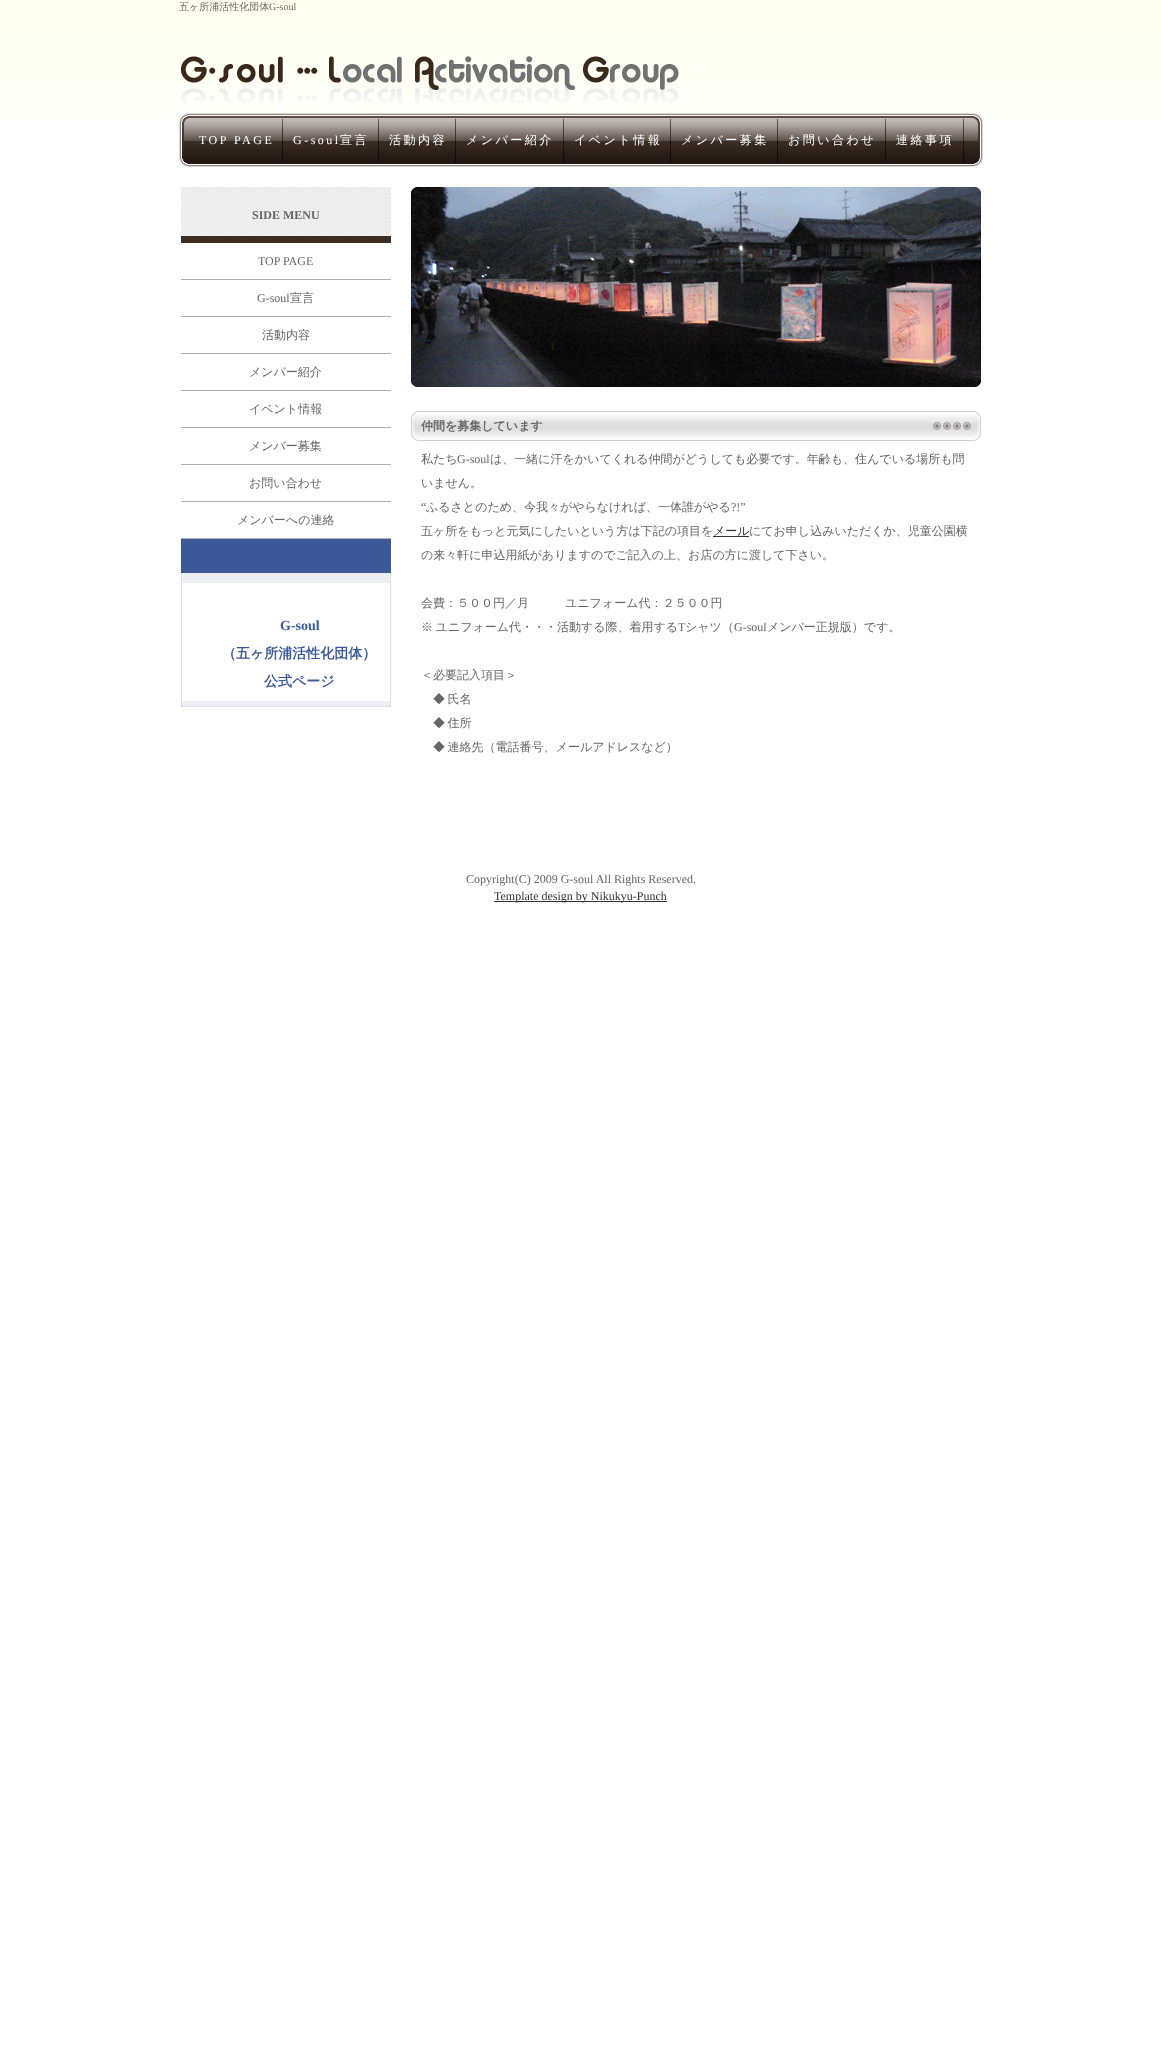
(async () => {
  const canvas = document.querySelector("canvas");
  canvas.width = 1161;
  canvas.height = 2067;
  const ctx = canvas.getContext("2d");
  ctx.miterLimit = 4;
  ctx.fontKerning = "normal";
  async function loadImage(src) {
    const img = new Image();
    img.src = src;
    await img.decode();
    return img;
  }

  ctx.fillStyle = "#ffffff";
  ctx.fillRect(0, 0, 1161, 2067);
  ctx.drawImage(await loadImage("img/1.png"), 0, 0, 1161, 120);
  ctx.drawImage(await loadImage("img/2.png"), 181, 56, 498, 53);
  ctx.drawImage(await loadImage("img/3.png"), 179, 113, 804, 54);
  ctx.drawImage(await loadImage("img/4.png"), 282, 119, 1, 44);
  ctx.drawImage(await loadImage("img/4.png"), 378, 119, 1, 44);
  ctx.drawImage(await loadImage("img/4.png"), 455, 119, 1, 44);
  ctx.drawImage(await loadImage("img/4.png"), 563, 119, 1, 44);
  ctx.drawImage(await loadImage("img/4.png"), 670, 119, 1, 44);
  ctx.drawImage(await loadImage("img/4.png"), 777, 119, 1, 44);
  ctx.drawImage(await loadImage("img/4.png"), 885, 119, 1, 44);
  ctx.drawImage(await loadImage("img/4.png"), 963, 119, 1, 44);
  ctx.drawImage(await loadImage("img/5.png"), 181, 187, 210, 56);
  for (const [x, y, w, h, color] of [
    [181, 279, 210, 1, "#aeaeae"],
    [181, 316, 210, 1, "#aeaeae"],
    [181, 353, 210, 1, "#aeaeae"],
    [181, 390, 210, 1, "#aeaeae"],
    [181, 427, 210, 1, "#aeaeae"],
    [181, 464, 210, 1, "#aeaeae"],
    [181, 501, 210, 1, "#aeaeae"],
    [181, 538, 210, 1, "#aeaeae"],
    [181, 539, 210, 34, "#3b5998"],
    [182, 573, 208, 133, "#edeff4"],
    [390, 573, 1, 134, "#d8dfea"],
    [181, 706, 210, 1, "#d8dfea"],
    [181, 573, 1, 134, "#d8dfea"],
    [182, 583, 208, 118, "#ffffff"],
  ]) {
    ctx.fillStyle = color;
    ctx.fillRect(x, y, w, h);
  }
  ctx.drawImage(await loadImage("img/6.png"), 411, 187, 570, 200);
  ctx.drawImage(await loadImage("img/7.png"), 411, 411, 570, 30);
  ctx.fillStyle = "#333333";
  ctx.fillRect(713, 536, 36, 1);
  ctx.fillRect(494, 901, 173, 1);
  ctx.font = "500 10px WenQuanYi Zen Hei";
  ctx.fillStyle = "#666666";
  ctx.fillText("五ヶ所浦活性化団体", 179, 10);
  ctx.font = "10px Liberation Serif";
  ctx.fillText("G-soul", 269, 10);
  ctx.letterSpacing = "2.5px";
  ctx.font = "12px Liberation Serif";
  ctx.fillStyle = "#ffffff";
  ctx.fillText("TOP PAGE", 199, 144);
  ctx.fillText("G-soul", 293, 144);
  ctx.font = "500 12px WenQuanYi Zen Hei";
  for (const [text, x, y] of [
    ["宣言", 340, 144],
    ["活動内容", 389, 144],
    ["メンバー紹介", 466, 144],
    ["イベント情報", 574, 144],
    ["メンバー募集", 681, 144],
    ["お問い合わせ", 788, 144],
    ["連絡事項", 896, 144],
  ]) {
    ctx.fillText(text, x, y);
  }
  ctx.letterSpacing = "0px";
  ctx.font = "bold 12px Liberation Serif";
  ctx.fillStyle = "#666666";
  ctx.fillText("SIDE MENU", 252, 219);
  ctx.font = "12px Liberation Serif";
  ctx.fillText("TOP PAGE", 258, 265);
  ctx.fillText("G-soul", 257, 302);
  ctx.font = "500 12px WenQuanYi Zen Hei";
  for (const [text, x, y] of [
    ["宣言", 290, 302],
    ["活動内容", 262, 339],
    ["メンバー紹介", 249, 376],
    ["イベント情報", 249, 413],
    ["メンバー募集", 249, 450],
    ["お問い合わせ", 249, 487],
    ["メンバーへの連絡", 237, 524],
  ]) {
    ctx.fillText(text, x, y);
  }
  ctx.font = "bold 14px Liberation Serif";
  ctx.fillStyle = "#3b5998";
  ctx.fillText("G-soul", 280, 630);
  ctx.font = "bold 14px WenQuanYi Zen Hei";
  ctx.fillText("（五ヶ所浦活性化団体）", 222, 658);
  ctx.fillText("公式ページ", 264, 686);
  ctx.font = "bold 12px WenQuanYi Zen Hei";
  ctx.fillStyle = "#666666";
  ctx.fillText("仲間を募集しています", 421, 430);
  ctx.font = "500 12px WenQuanYi Zen Hei";
  ctx.fillText("私たち", 421, 463);
  ctx.font = "12px Liberation Serif";
  ctx.fillText("G-soul", 457, 463);
  ctx.font = "500 12px WenQuanYi Zen Hei";
  ctx.fillText("は、一緒に汗をかいてくれる仲間がどうしても必要です。年齢も、住んでいる場所も問", 490, 463);
  ctx.fillText("いません。", 421, 487);
  ctx.font = "12px Liberation Serif";
  ctx.fillText("“", 421, 511);
  ctx.font = "500 12px WenQuanYi Zen Hei";
  ctx.fillText("ふるさとのため、今我々がやらなければ、一体誰がやる", 426, 511);
  ctx.font = "12px Liberation Serif";
  ctx.fillText("?!”", 731, 511);
  ctx.font = "500 12px WenQuanYi Zen Hei";
  ctx.fillText("五ヶ所をもっと元気にしたいという方は下記の項目を", 421, 535);
  ctx.fillStyle = "#333333";
  ctx.fillText("メール", 713, 535);
  ctx.fillStyle = "#666666";
  for (const [text, x, y] of [
    ["にてお申し込みいただくか、児童公園横", 749, 535],
    ["の来々軒に申込用紙がありますのでご記入の上、お店の方に渡して下さい。", 421, 559],
    ["会費：５００円／月　　　ユニフォーム代：２５００円", 421, 607],
  ]) {
    ctx.fillText(text, x, y);
  }
  ctx.wordSpacing = "-1px";
  ctx.fillText("※ ユニフォーム代・・・活動する際、着用する", 421, 631);
  ctx.wordSpacing = "0px";
  ctx.font = "12px Liberation Serif";
  ctx.fillText("T", 678, 631);
  ctx.font = "500 12px WenQuanYi Zen Hei";
  ctx.fillText("シャツ（", 685, 631);
  ctx.font = "12px Liberation Serif";
  ctx.fillText("G-soul", 734, 631);
  ctx.font = "500 12px WenQuanYi Zen Hei";
  ctx.fillText("メンバー正規版）です。", 767, 631);
  ctx.fillText("＜必要記入項目＞", 421, 679);
  ctx.wordSpacing = "-1px";
  for (const [text, x, y] of [
    ["◆ 氏名", 433, 703],
    ["◆ 住所", 433, 727],
    ["◆ 連絡先（電話番号、メールアドレスなど）", 433, 751],
  ]) {
    ctx.fillText(text, x, y);
  }
  ctx.wordSpacing = "0px";
  ctx.font = "12px Liberation Serif";
  ctx.fillText("Copyright(C) 2009 G-soul All Rights Reserved.", 466, 883);
  ctx.fillStyle = "#333333";
  ctx.fillText("Template design by Nikukyu-Punch", 494, 900);
})();
